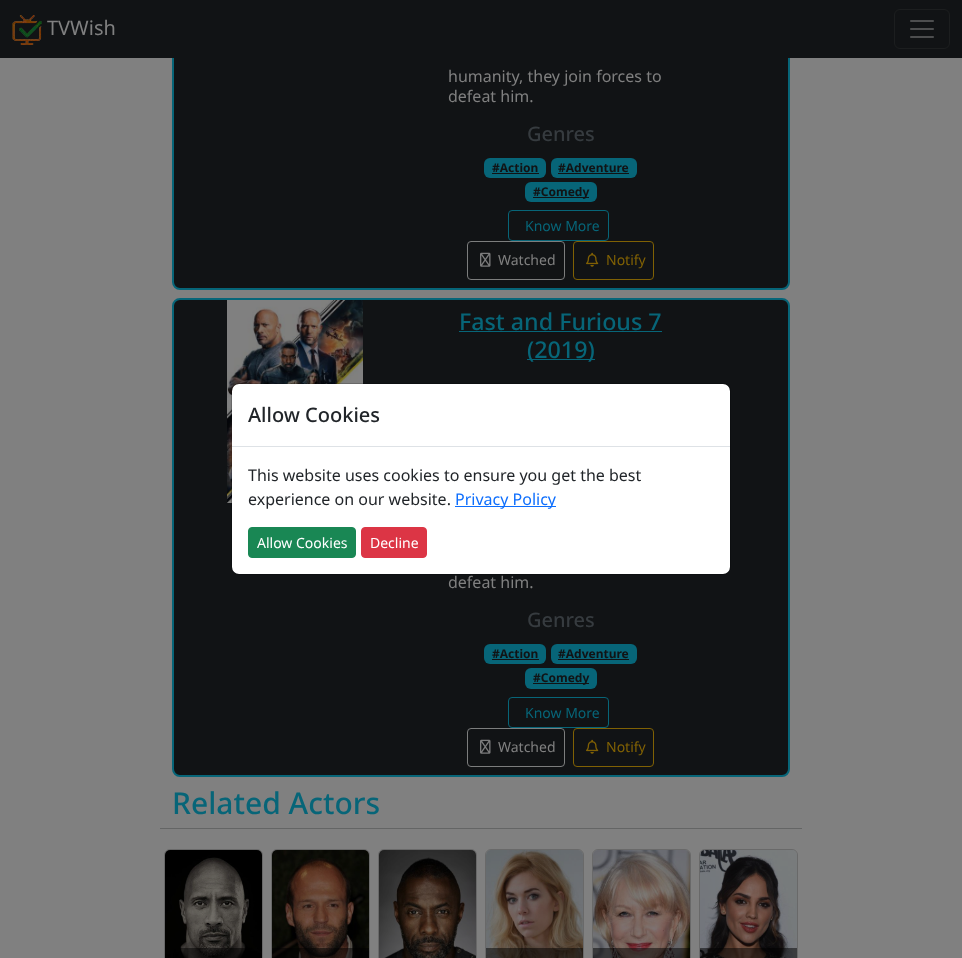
(async () => {
  const canvas = document.querySelector("canvas");
  canvas.width = 962;
  canvas.height = 958;
  const ctx = canvas.getContext("2d");
  ctx.miterLimit = 4;
  ctx.fontKerning = "normal";
  async function loadImage(src) {
    const img = new Image();
    img.src = src;
    await img.decode();
    return img;
  }

  ctx.fillStyle = "#808080";
  ctx.fillRect(0, 0, 962, 958);
  ctx.fillStyle = "#111315";
  ctx.beginPath();
  ctx.roundRect(173, -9, 616, 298, 7);
  ctx.fill();
  ctx.strokeStyle = "#076578";
  ctx.lineWidth = 2;
  ctx.stroke();
  ctx.fillRect(0, 0, 962, 58);
  ctx.drawImage(await loadImage("img/1.png"), 12, 15, 30, 30);
  ctx.beginPath();
  ctx.roundRect(894.5, 9.5, 55, 39, 5.5);
  ctx.strokeStyle = "#1c1e1f";
  ctx.lineWidth = 1;
  ctx.stroke();
  ctx.drawImage(await loadImage("img/2.png"), 910, 20, 24, 18);
  ctx.fillStyle = "#076578";
  ctx.beginPath();
  ctx.roundRect(484, 158, 62, 20, 6);
  ctx.fill();
  ctx.fillStyle = "#111315";
  ctx.fillRect(492, 173, 47, 1);
  ctx.fillStyle = "#076578";
  ctx.beginPath();
  ctx.roundRect(551, 158, 86, 20, 6);
  ctx.fill();
  ctx.fillStyle = "#111315";
  ctx.fillRect(558, 173, 71, 1);
  ctx.fillStyle = "#076578";
  ctx.beginPath();
  ctx.roundRect(525, 182, 72, 20, 6);
  ctx.fill();
  ctx.fillStyle = "#111315";
  ctx.fillRect(533, 197, 56, 1);
  ctx.beginPath();
  ctx.roundRect(508.5, 210.5, 100, 30, 3.5);
  ctx.strokeStyle = "#076578";
  ctx.stroke();
  ctx.beginPath();
  ctx.roundRect(467.5, 241.5, 97, 38, 3.5);
  ctx.strokeStyle = "#7c7d7d";
  ctx.stroke();
  ctx.drawImage(await loadImage("img/3.png"), 480, 252, 11, 15);
  ctx.beginPath();
  ctx.roundRect(573.5, 241.5, 80, 38, 3.5);
  ctx.strokeStyle = "#806104";
  ctx.stroke();
  ctx.drawImage(await loadImage("img/4.png"), 586, 252, 13, 15);
  ctx.beginPath();
  ctx.roundRect(173, 299, 616, 477, 7);
  ctx.fill();
  ctx.strokeStyle = "#076578";
  ctx.lineWidth = 2;
  ctx.stroke();
  ctx.drawImage(await loadImage("img/5.png"), 227, 300, 136, 203);
  ctx.fillStyle = "#076578";
  ctx.fillRect(459, 331, 203, 1);
  ctx.fillRect(527, 359, 68, 1);
  ctx.beginPath();
  ctx.roundRect(484, 644, 62, 20, 6);
  ctx.fill();
  ctx.fillStyle = "#111315";
  ctx.fillRect(492, 659, 47, 1);
  ctx.fillStyle = "#076578";
  ctx.beginPath();
  ctx.roundRect(551, 644, 86, 20, 6);
  ctx.fill();
  ctx.fillStyle = "#111315";
  ctx.fillRect(558, 659, 71, 1);
  ctx.fillStyle = "#076578";
  ctx.beginPath();
  ctx.roundRect(525, 668, 72, 21, 6);
  ctx.fill();
  ctx.fillStyle = "#111315";
  ctx.fillRect(533, 683, 56, 1);
  ctx.beginPath();
  ctx.roundRect(508.5, 697.5, 100, 30, 3.5);
  ctx.lineWidth = 1;
  ctx.stroke();
  ctx.beginPath();
  ctx.roundRect(467.5, 728.5, 97, 38, 3.5);
  ctx.strokeStyle = "#7c7d7d";
  ctx.stroke();
  ctx.drawImage(await loadImage("img/3.png"), 480, 739, 11, 15);
  ctx.beginPath();
  ctx.roundRect(573.5, 728.5, 80, 38, 3.5);
  ctx.strokeStyle = "#806104";
  ctx.stroke();
  ctx.drawImage(await loadImage("img/4.png"), 586, 739, 13, 15);
  ctx.fillStyle = "#646565";
  ctx.fillRect(160, 828, 642, 1);
  ctx.beginPath();
  ctx.roundRect(164.5, 849.5, 98, 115, 5.5);
  ctx.strokeStyle = "#696969";
  ctx.stroke();
  ctx.drawImage(await loadImage("img/6.png"), 165, 850, 97, 108);
  ctx.fillStyle = "rgba(0, 0, 0, 0.5)";
  ctx.fillRect(180, 948, 65, 10);
  ctx.beginPath();
  ctx.roundRect(271.5, 849.5, 98, 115, 5.5);
  ctx.stroke();
  ctx.drawImage(await loadImage("img/7.png"), 272, 850, 97, 108);
  ctx.fillRect(272, 948, 97, 10);
  ctx.beginPath();
  ctx.roundRect(378.5, 849.5, 98, 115, 5.5);
  ctx.stroke();
  ctx.drawImage(await loadImage("img/8.png"), 379, 850, 97, 108);
  ctx.beginPath();
  ctx.roundRect(485.5, 849.5, 98, 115, 5.5);
  ctx.stroke();
  ctx.drawImage(await loadImage("img/9.png"), 486, 850, 97, 108);
  ctx.fillRect(486, 948, 97, 10);
  ctx.beginPath();
  ctx.roundRect(592.5, 849.5, 98, 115, 5.5);
  ctx.stroke();
  ctx.drawImage(await loadImage("img/10.png"), 593, 850, 97, 108);
  ctx.fillRect(593, 948, 97, 10);
  ctx.beginPath();
  ctx.roundRect(699.5, 849.5, 98, 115, 5.5);
  ctx.stroke();
  ctx.drawImage(await loadImage("img/11.png"), 700, 850, 97, 108);
  ctx.fillRect(700, 948, 97, 10);
  ctx.fillStyle = "#ffffff";
  ctx.beginPath();
  ctx.roundRect(232, 384, 498, 190, 7);
  ctx.fill();
  ctx.beginPath();
  ctx.roundRect(231.5, 383.5, 499, 191, 7.5);
  ctx.strokeStyle = "rgba(0, 0, 0, 0.18)";
  ctx.stroke();
  ctx.fillStyle = "#dee2e6";
  ctx.fillRect(232, 446, 498, 1);
  ctx.fillStyle = "#0d6efd";
  ctx.fillRect(455, 506, 101, 1);
  ctx.fillStyle = "#198754";
  ctx.beginPath();
  ctx.roundRect(248.5, 527.5, 107, 30, 3.5);
  ctx.fill();
  ctx.strokeStyle = "#198754";
  ctx.stroke();
  ctx.fillStyle = "#dc3545";
  ctx.beginPath();
  ctx.roundRect(361.5, 527.5, 65, 30, 3.5);
  ctx.fill();
  ctx.strokeStyle = "#dc3545";
  ctx.stroke();
  ctx.font = "20px Noto Sans";
  ctx.fillStyle = "#808080";
  ctx.fillText("TVWish", 47, 35);
  ctx.font = "16px Noto Sans";
  ctx.fillText("humanity, they join forces to", 448, 82);
  ctx.fillText("defeat him.", 448, 102);
  ctx.font = "500 20px Noto Sans";
  ctx.fillStyle = "#363b3f";
  ctx.fillText("Genres", 527, 141);
  ctx.font = "bold 12px Noto Sans";
  ctx.fillStyle = "#111315";
  for (const [text, x, y] of [
    ["#Action", 492, 172],
    ["#Adventure", 558, 172],
    ["#Comedy", 533, 196],
  ]) {
    ctx.fillText(text, x, y);
  }
  ctx.font = "14px Noto Sans";
  ctx.fillStyle = "#076578";
  ctx.fillText("Know More", 525, 231);
  ctx.fillStyle = "#808080";
  ctx.fillText("Watched", 498, 265);
  ctx.fillStyle = "#806104";
  ctx.fillText("Notify", 606, 265);
  ctx.font = "500 23.25px Noto Sans";
  ctx.fillStyle = "#076578";
  ctx.fillText("Fast and Furious 7", 459, 330);
  ctx.fillText("(2019)", 527, 358);
  ctx.font = "16px Noto Sans";
  ctx.fillStyle = "#808080";
  ctx.fillText("defeat him.", 448, 588);
  ctx.font = "500 20px Noto Sans";
  ctx.fillStyle = "#363b3f";
  ctx.fillText("Genres", 527, 627);
  ctx.font = "bold 12px Noto Sans";
  ctx.fillStyle = "#111315";
  for (const [text, x, y] of [
    ["#Action", 492, 658],
    ["#Adventure", 558, 658],
    ["#Comedy", 533, 682],
  ]) {
    ctx.fillText(text, x, y);
  }
  ctx.font = "14px Noto Sans";
  ctx.fillStyle = "#076578";
  ctx.fillText("Know More", 525, 718);
  ctx.fillStyle = "#808080";
  ctx.fillText("Watched", 498, 752);
  ctx.fillStyle = "#806104";
  ctx.fillText("Notify", 606, 752);
  ctx.font = "500 30px Noto Sans";
  ctx.fillStyle = "#076578";
  ctx.fillText("Related Actors", 172, 814);
  ctx.font = "500 20px Noto Sans";
  ctx.fillStyle = "#212529";
  ctx.fillText("Allow Cookies", 248, 422);
  ctx.font = "16px Noto Sans";
  ctx.fillText("This website uses cookies to ensure you get the best", 248, 481);
  ctx.fillText("experience on our website.", 248, 505);
  ctx.fillStyle = "#0d6efd";
  ctx.fillText("Privacy Policy", 455, 505);
  ctx.font = "14px Noto Sans";
  ctx.fillStyle = "#ffffff";
  ctx.fillText("Allow Cookies", 257, 548);
  ctx.fillText("Decline", 370, 548);
})();
